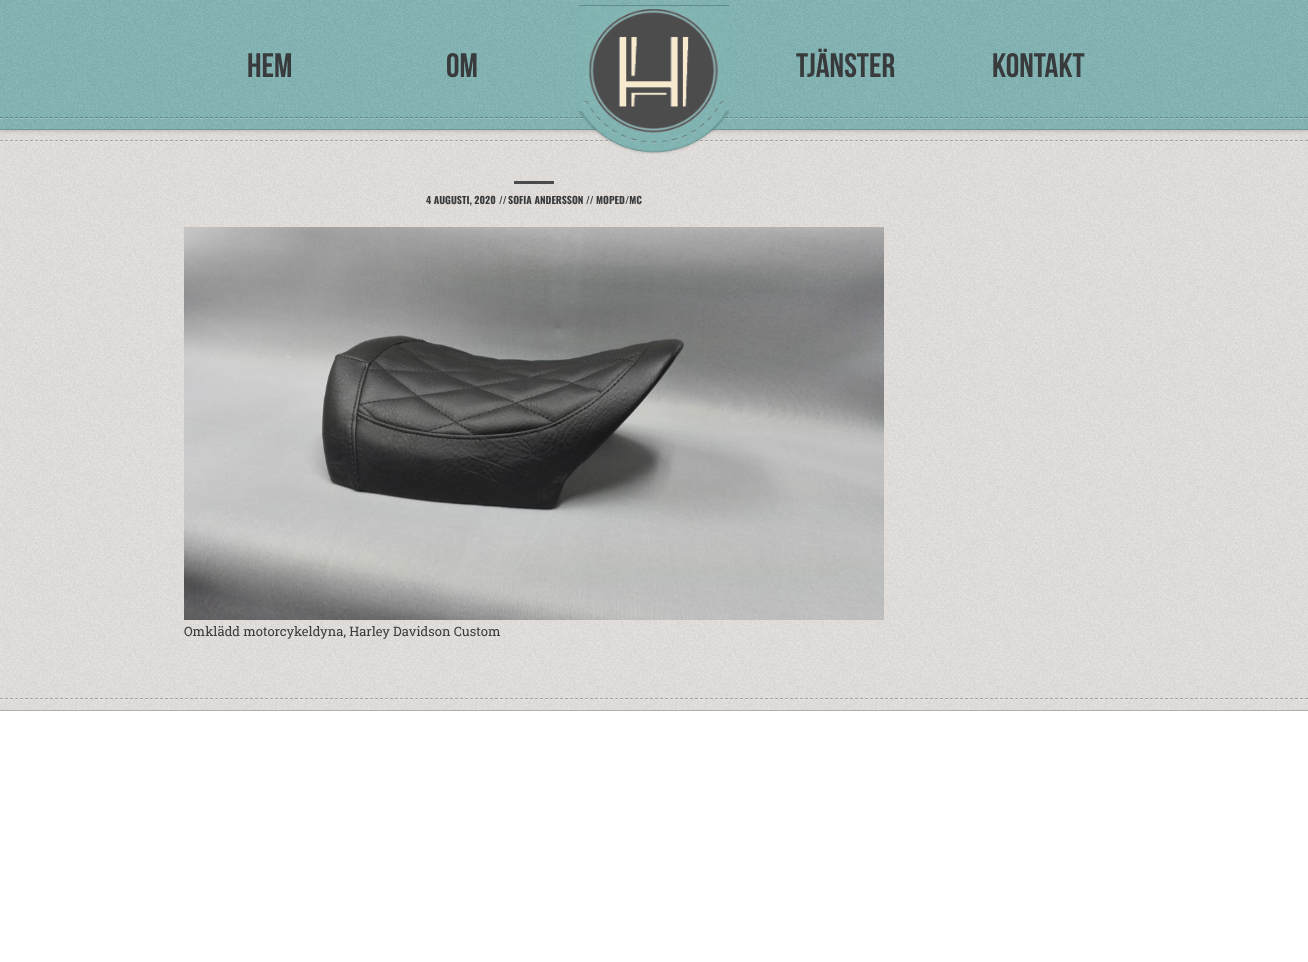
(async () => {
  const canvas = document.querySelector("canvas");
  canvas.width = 1308;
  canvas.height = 962;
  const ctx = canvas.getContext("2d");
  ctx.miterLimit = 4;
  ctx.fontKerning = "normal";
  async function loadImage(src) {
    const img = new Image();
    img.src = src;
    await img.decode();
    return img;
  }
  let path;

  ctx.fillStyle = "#ffffff";
  ctx.fillRect(0, 0, 1308, 962);
  ctx.fillStyle = "#e3e0dd";
  ctx.fillRect(0, 130, 1308, 581);
  ctx.drawImage(await loadImage("img/3.png"), 0, 130, 1308, 581);
  ctx.fillStyle = "rgba(0, 0, 0, 0.25)";
  ctx.filter = "blur(2.5px)";
  ctx.beginPath();
  ctx.rect(0, 0, 1308, 130);
  ctx.fill();
  ctx.filter = "none";
  ctx.fillStyle = "#83b6b5";
  ctx.fillRect(0, 0, 1308, 130);
  ctx.drawImage(await loadImage("img/1.png"), 0, 0, 1308, 130);
  ctx.fillStyle = "rgba(0, 0, 0, 0.15)";
  ctx.fillRect(0, 129, 1308, 1);
  path = new Path2D("M0 117.5H1308");
  ctx.strokeStyle = "rgba(0, 0, 0, 0.25)";
  ctx.setLineDash([3, 2]);
  ctx.stroke(path);
  path = new Path2D("M0 118.5H1308");
  ctx.strokeStyle = "rgba(255, 255, 255, 0.25)";
  ctx.stroke(path);
  path = new Path2D("M0 140.5H1308");
  ctx.strokeStyle = "rgba(0, 0, 0, 0.25)";
  ctx.stroke(path);
  path = new Path2D("M0 141.5H1308");
  ctx.strokeStyle = "rgba(255, 255, 255, 0.25)";
  ctx.stroke(path);
  ctx.drawImage(await loadImage("img/2.png"), 579, 5, 150, 149);
  ctx.fillStyle = "rgba(0, 0, 0, 0.2)";
  ctx.fillRect(0, 710, 1308, 1);
  ctx.fillStyle = "rgba(56, 58, 60, 0.9)";
  ctx.fillRect(514, 181, 40, 3);
  ctx.drawImage(await loadImage("img/4.png"), 184, 227, 700, 393);
  path = new Path2D("M0 698.5H1308");
  ctx.strokeStyle = "rgba(0, 0, 0, 0.25)";
  ctx.stroke(path);
  path = new Path2D("M0 699.5H1308");
  ctx.strokeStyle = "rgba(255, 255, 255, 0.25)";
  ctx.stroke(path);
  ctx.font = "bold 34px Bebas Neue";
  ctx.fillStyle = "#383a3c";
  for (const [text, x, y] of [
    ["HEM", 247, 77],
    ["OM", 446, 77],
    ["TJÄNSTER", 796, 77],
    ["KONTAKT", 992, 77],
  ]) {
    ctx.fillText(text, x, y);
  }
  ctx.font = "bold 10px Oswald";
  ctx.fillText("4 AUGUSTI, 2020", 426, 204);
  ctx.font = "10px Oswald";
  ctx.fillText("//", 499, 204);
  ctx.font = "bold 10px Oswald";
  ctx.fillText("SOFIA ANDERSSON", 508, 204);
  ctx.font = "10px Oswald";
  ctx.fillText("//", 586, 204);
  ctx.font = "bold 10px Oswald";
  ctx.fillText("MOPED/MC", 596, 204);
  ctx.font = "13px Roboto Slab";
  ctx.fillText("Omklädd motorcykeldyna, Harley Davidson Custom", 184, 636);
})();
